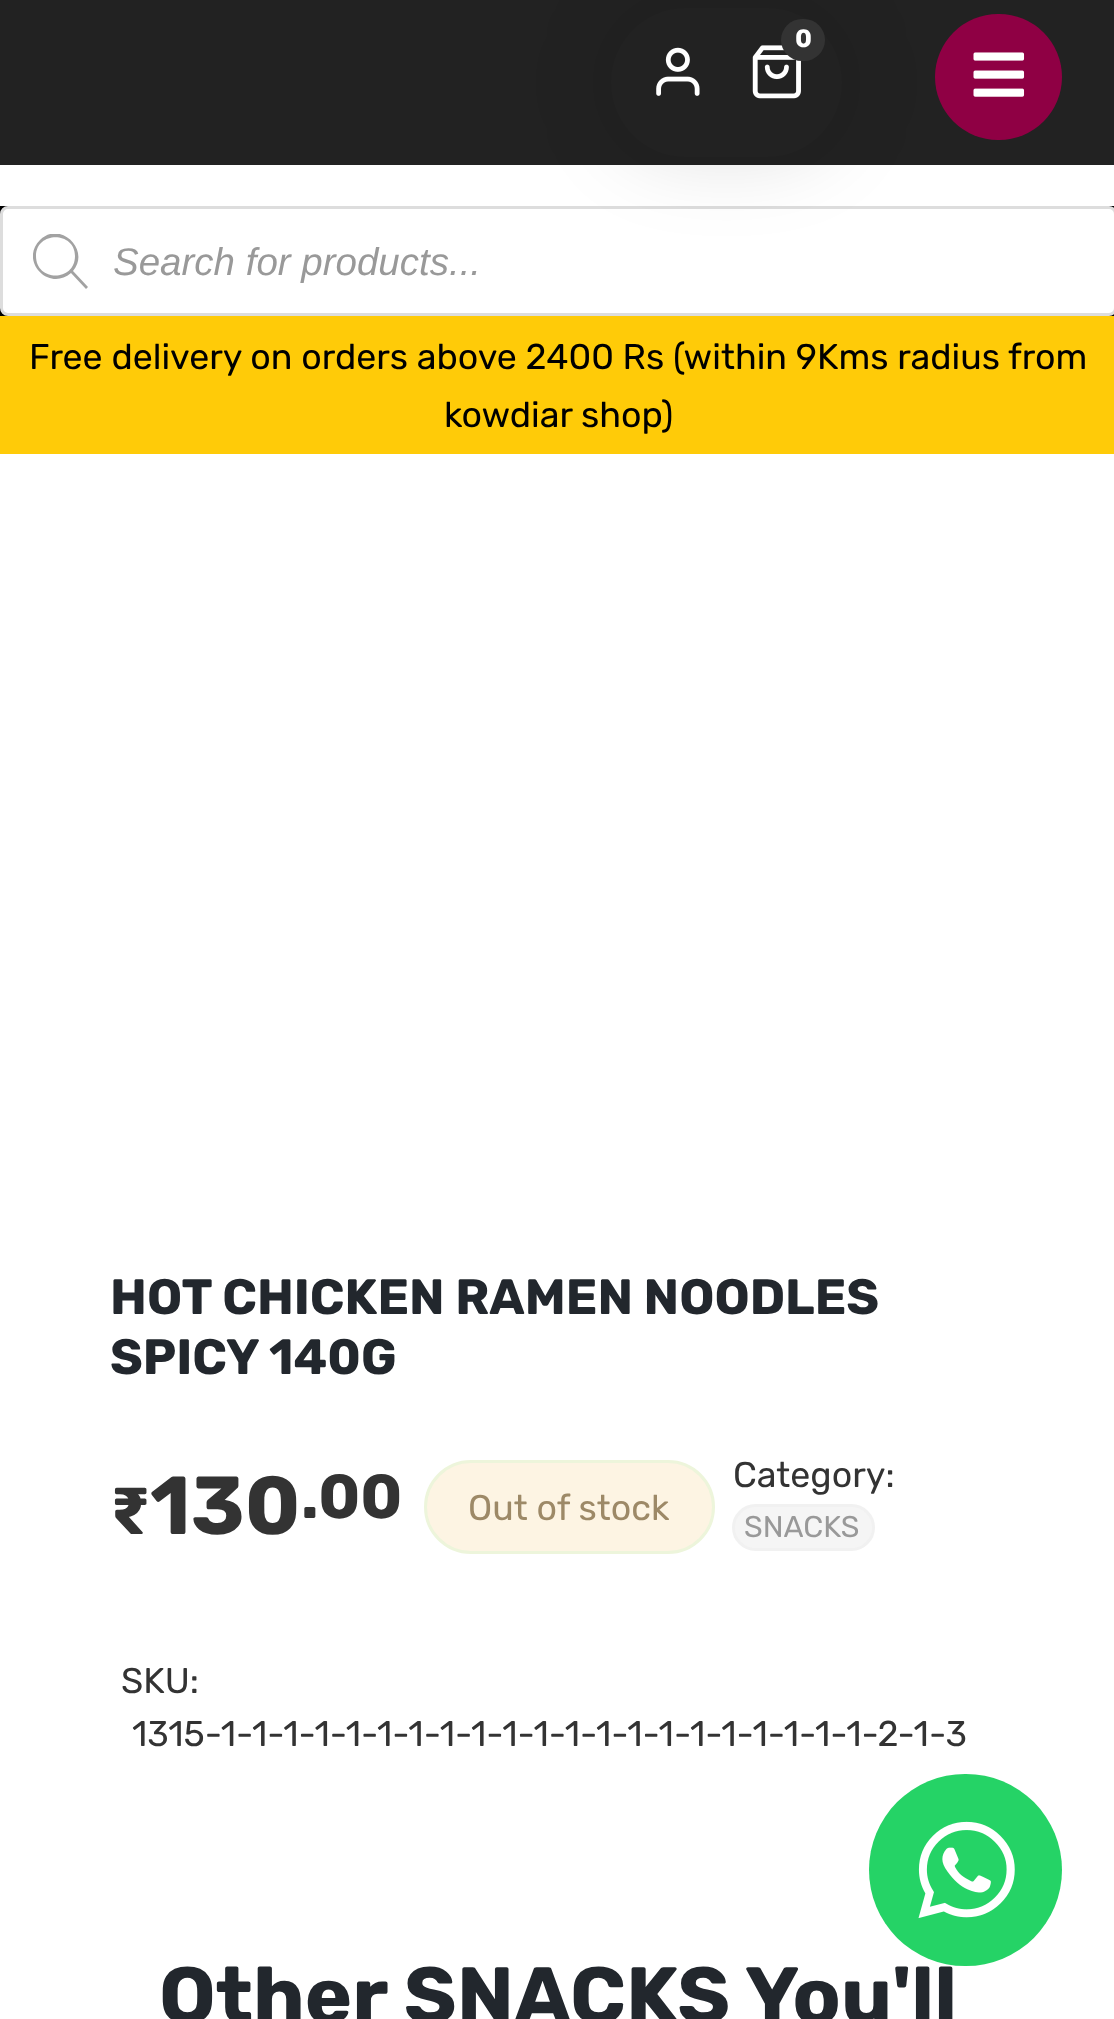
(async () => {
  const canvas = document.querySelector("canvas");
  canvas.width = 1114;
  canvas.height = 2019;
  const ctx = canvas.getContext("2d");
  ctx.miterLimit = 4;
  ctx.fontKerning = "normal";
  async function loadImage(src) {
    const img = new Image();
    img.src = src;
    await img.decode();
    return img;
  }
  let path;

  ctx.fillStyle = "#ffffff";
  ctx.fillRect(0, 0, 1114, 2019);
  ctx.fillStyle = "#222222";
  ctx.fillRect(0, 0, 1114, 165);
  ctx.fillStyle = "#000000";
  ctx.fillRect(0, 206, 1114, 110);
  ctx.fillStyle = "#ffffff";
  ctx.beginPath();
  ctx.roundRect(1.5, 207.5, 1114, 107, 6.5);
  ctx.fill();
  ctx.strokeStyle = "#dddddd";
  ctx.lineWidth = 3;
  ctx.stroke();
  ctx.save();
  path = new Path2D("M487 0H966V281H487ZM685.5 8H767.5C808.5 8 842 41.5 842 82.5C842 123.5 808.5 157 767.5 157H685.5C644.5 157 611 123.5 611 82.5C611 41.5 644.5 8 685.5 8Z");
  ctx.clip(path, "evenodd");
  ctx.fillStyle = "rgba(0, 0, 0, 0.12)";
  ctx.filter = "blur(41px)";
  ctx.beginPath();
  ctx.roundRect(611, 8, 231, 149, 74.5);
  ctx.fill();
  ctx.filter = "none";
  ctx.restore();
  ctx.drawImage(await loadImage("img/1.png"), 752, 45, 49, 54);
  ctx.fillStyle = "#333333";
  ctx.beginPath();
  ctx.roundRect(781, 19, 44, 42, 21);
  ctx.fill();
  ctx.drawImage(await loadImage("img/2.png"), 656, 47, 44, 49);
  ctx.fillStyle = "#8f0044";
  ctx.beginPath();
  ctx.roundRect(935, 14, 127, 126, 63);
  ctx.fill();
  ctx.drawImage(await loadImage("img/3.png"), 973, 52, 52, 45);
  ctx.save();
  ctx.beginPath();
  ctx.rect(33, 234, 55, 55);
  ctx.clip();
  ctx.fillStyle = "#a2a2a2";
  path = new Path2D("M88 287L73 271C91 250 60 220 40 240C19 261 49 292 71 273L86 289ZM36 256C36 231 75 231 75 256C75 282 36 282 36 256Z");
  ctx.fill(path);
  ctx.restore();
  ctx.fillStyle = "#ffcb08";
  ctx.fillRect(0, 316, 1114, 138);
  ctx.fillStyle = "#f5f5f5";
  ctx.beginPath();
  ctx.roundRect(733.5, 1505.5, 140, 44, 22);
  ctx.fill();
  ctx.strokeStyle = "#f1f1f1";
  ctx.stroke();
  ctx.fillStyle = "#fdf4e3";
  ctx.beginPath();
  ctx.roundRect(425.5, 1461.5, 288, 91, 45.5);
  ctx.fill();
  ctx.strokeStyle = "#edf5db";
  ctx.stroke();
  ctx.fillStyle = "#25d366";
  ctx.beginPath();
  ctx.roundRect(869, 1774, 193, 192, 96);
  ctx.fill();
  ctx.drawImage(await loadImage("img/4.png"), 918, 1821, 97, 98);
  ctx.font = "bold 25px Rubik";
  ctx.fillStyle = "#ffffff";
  ctx.fillText("0", 795, 47);
  ctx.font = "italic 38.5px Liberation Sans";
  ctx.fillStyle = "#999999";
  ctx.fillText("Search for products...", 113, 275);
  ctx.font = "35.75px Rubik";
  ctx.fillStyle = "#000000";
  ctx.fillText("Free delivery on orders above 2400 Rs (within 9Kms radius from", 29, 369);
  ctx.fillText("kowdiar shop)", 444, 427);
  ctx.font = "bold 49.5px Rubik";
  ctx.fillStyle = "#22272d";
  ctx.fillText("HOT CHICKEN RAMEN NOODLES", 110, 1314);
  ctx.fillText("SPICY 140G", 110, 1374);
  ctx.font = "35.75px Rubik";
  ctx.fillStyle = "#333333";
  ctx.fillText("Category:", 733, 1487);
  ctx.font = "30px Rubik";
  ctx.fillStyle = "#999999";
  ctx.fillText("SNACKS", 744, 1537);
  ctx.font = "35.75px Rubik";
  ctx.fillStyle = "#333333";
  ctx.fillText("SKU:", 121, 1693);
  ctx.fillText("1315-1-1-1-1-1-1-1-1-1-1-1-1-1-1-1-1-1-1-1-1-1-2-1-3", 132, 1746);
  ctx.font = "bold 66px Rubik";
  ctx.fillText("₹", 110, 1534);
  ctx.font = "bold 82px Rubik";
  ctx.fillText("130", 150, 1534);
  ctx.font = "bold 62px Rubik";
  ctx.fillText(".00", 301, 1518);
  ctx.font = "35.75px Rubik";
  ctx.fillStyle = "#9d8967";
  ctx.fillText("Out of stock", 468, 1520);
  ctx.font = "bold 79.75px Rubik";
  ctx.fillStyle = "#22272d";
  ctx.fillText("Other SNACKS", 159, 2023);
  ctx.fillText("You'll", 745, 2023);
})();
